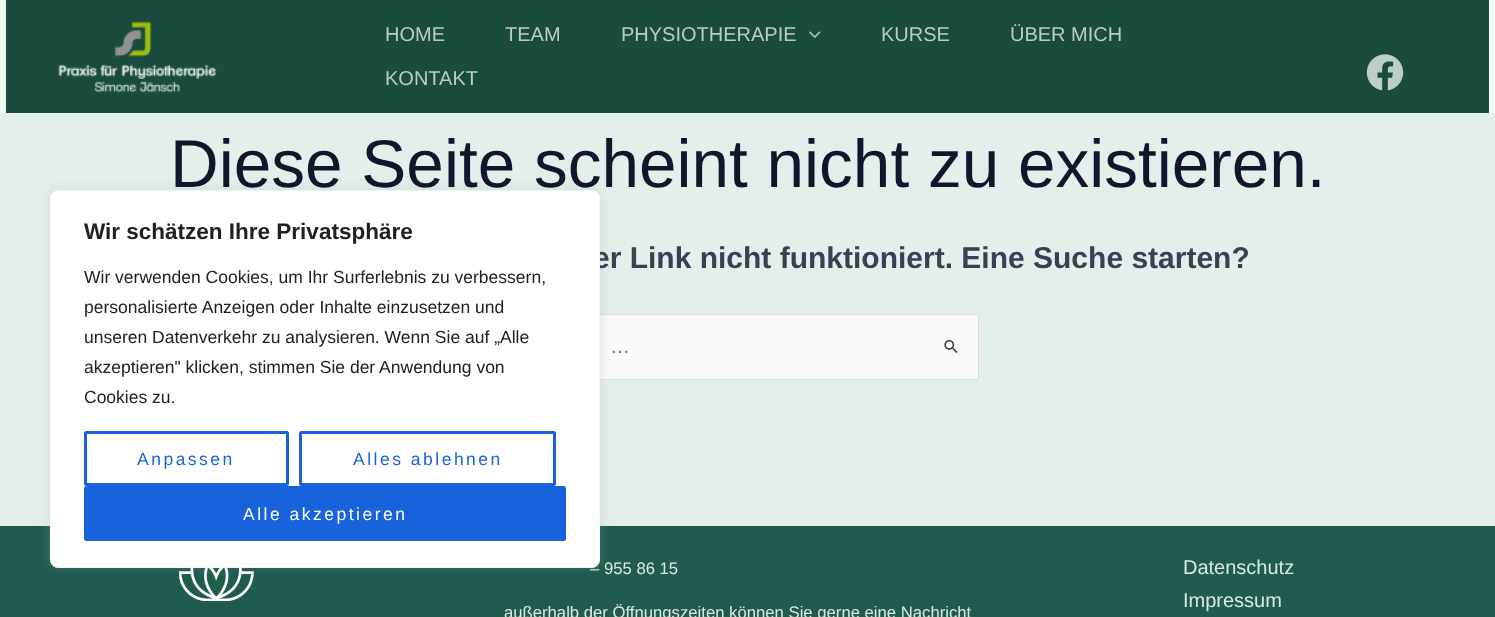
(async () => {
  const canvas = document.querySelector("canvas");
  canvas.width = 1495;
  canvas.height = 617;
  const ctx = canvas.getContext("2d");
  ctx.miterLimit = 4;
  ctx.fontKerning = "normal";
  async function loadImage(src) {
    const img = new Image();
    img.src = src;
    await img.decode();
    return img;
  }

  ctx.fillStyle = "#e4efeb";
  ctx.fillRect(0, 0, 1495, 617);
  ctx.fillStyle = "#f2fbf1";
  ctx.fillRect(0, 0, 1495, 113);
  ctx.fillStyle = "#194b3e";
  ctx.fillRect(6, 0, 1483, 113);
  ctx.drawImage(await loadImage("img/1.png"), 58, 21, 159, 72);
  ctx.drawImage(await loadImage("img/2.png"), 809, 31, 12, 8);
  ctx.drawImage(await loadImage("img/3.png"), 1366, 54, 38, 37);
  ctx.fillStyle = "#fafafa";
  ctx.beginPath();
  ctx.roundRect(516.5, 314.5, 462, 65, 2);
  ctx.fill();
  ctx.strokeStyle = "#dddddd";
  ctx.stroke();
  ctx.drawImage(await loadImage("img/4.png"), 944, 340, 14, 13);
  ctx.fillStyle = "#205b4f";
  ctx.fillRect(0, 526, 1495, 91);
  ctx.drawImage(await loadImage("img/5.png"), 179, 568, 75, 33);
  ctx.fillStyle = "rgba(172, 171, 171, 0.3)";
  ctx.filter = "blur(6px)";
  ctx.beginPath();
  ctx.roundRect(50, 189, 550, 377, 8);
  ctx.fill();
  ctx.filter = "none";
  ctx.font = "20px Liberation Sans";
  ctx.fillStyle = "#bccbc8";
  for (const [text, x, y] of [
    ["HOME", 385, 41],
    ["TEAM", 505, 41],
    ["PHYSIOTHERAPIE", 621, 41],
    ["KURSE", 881, 41],
    ["ÜBER MICH", 1010, 41],
    ["KONTAKT", 385, 85],
  ]) {
    ctx.fillText(text, x, y);
  }
  ctx.font = "67.5px Liberation Sans";
  ctx.fillStyle = "#0f172a";
  ctx.fillText("Diese Seite scheint nicht zu existieren.", 170, 187);
  ctx.font = "bold 30px Liberation Sans";
  ctx.fillStyle = "#364151";
  ctx.fillText("er Link nicht funktioniert. Eine Suche starten?", 593, 268);
  ctx.font = "20px Liberation Sans";
  ctx.fillStyle = "#757575";
  ctx.fillText("…", 610, 353);
  ctx.font = "16.7px Liberation Sans";
  ctx.fillStyle = "#d9e8e5";
  ctx.fillText("– 955 86 15", 590, 574);
  ctx.fillText("außerhalb der Öffnungszeiten können Sie gerne eine Nachricht", 504, 618);
  ctx.font = "20px Liberation Sans";
  ctx.fillText("Datenschutz", 1183, 574);
  ctx.fillText("Impressum", 1183, 607);
  ctx.fillStyle = "#ffffff";
  ctx.beginPath();
  ctx.roundRect(50.5, 190.5, 549, 377, 7.5);
  ctx.fill();
  ctx.strokeStyle = "#f4f4f4";
  ctx.stroke();
  ctx.font = "bold 22.5px Liberation Sans";
  ctx.fillStyle = "#212121";
  ctx.fillText("Wir schätzen Ihre Privatsphäre", 84, 239);
  ctx.font = "17.5px Liberation Sans";
  for (const [text, x, y] of [
    ["Wir verwenden Cookies, um Ihr Surferlebnis zu verbessern,", 84, 283],
    ["personalisierte Anzeigen oder Inhalte einzusetzen und", 84, 313],
    ["unseren Datenverkehr zu analysieren. Wenn Sie auf „Alle", 84, 343],
    ["akzeptieren\" klicken, stimmen Sie der Anwendung von", 84, 373],
    ["Cookies zu.", 84, 403],
  ]) {
    ctx.fillText(text, x, y);
  }
  ctx.beginPath();
  ctx.roundRect(85.5, 432.5, 202, 52, 1);
  ctx.strokeStyle = "#1863dc";
  ctx.lineWidth = 3;
  ctx.stroke();
  ctx.letterSpacing = "2.5px";
  ctx.fillStyle = "#1863dc";
  ctx.fillText("Anpassen", 137, 465);
  ctx.beginPath();
  ctx.roundRect(300.5, 432.5, 254, 52, 1);
  ctx.stroke();
  ctx.fillText("Alles ablehnen", 353, 465);
  ctx.beginPath();
  ctx.roundRect(85.5, 487.5, 479, 52, 1);
  ctx.fill();
  ctx.stroke();
  ctx.fillStyle = "#ffffff";
  ctx.fillText("Alle akzeptieren", 243, 520);
})();
